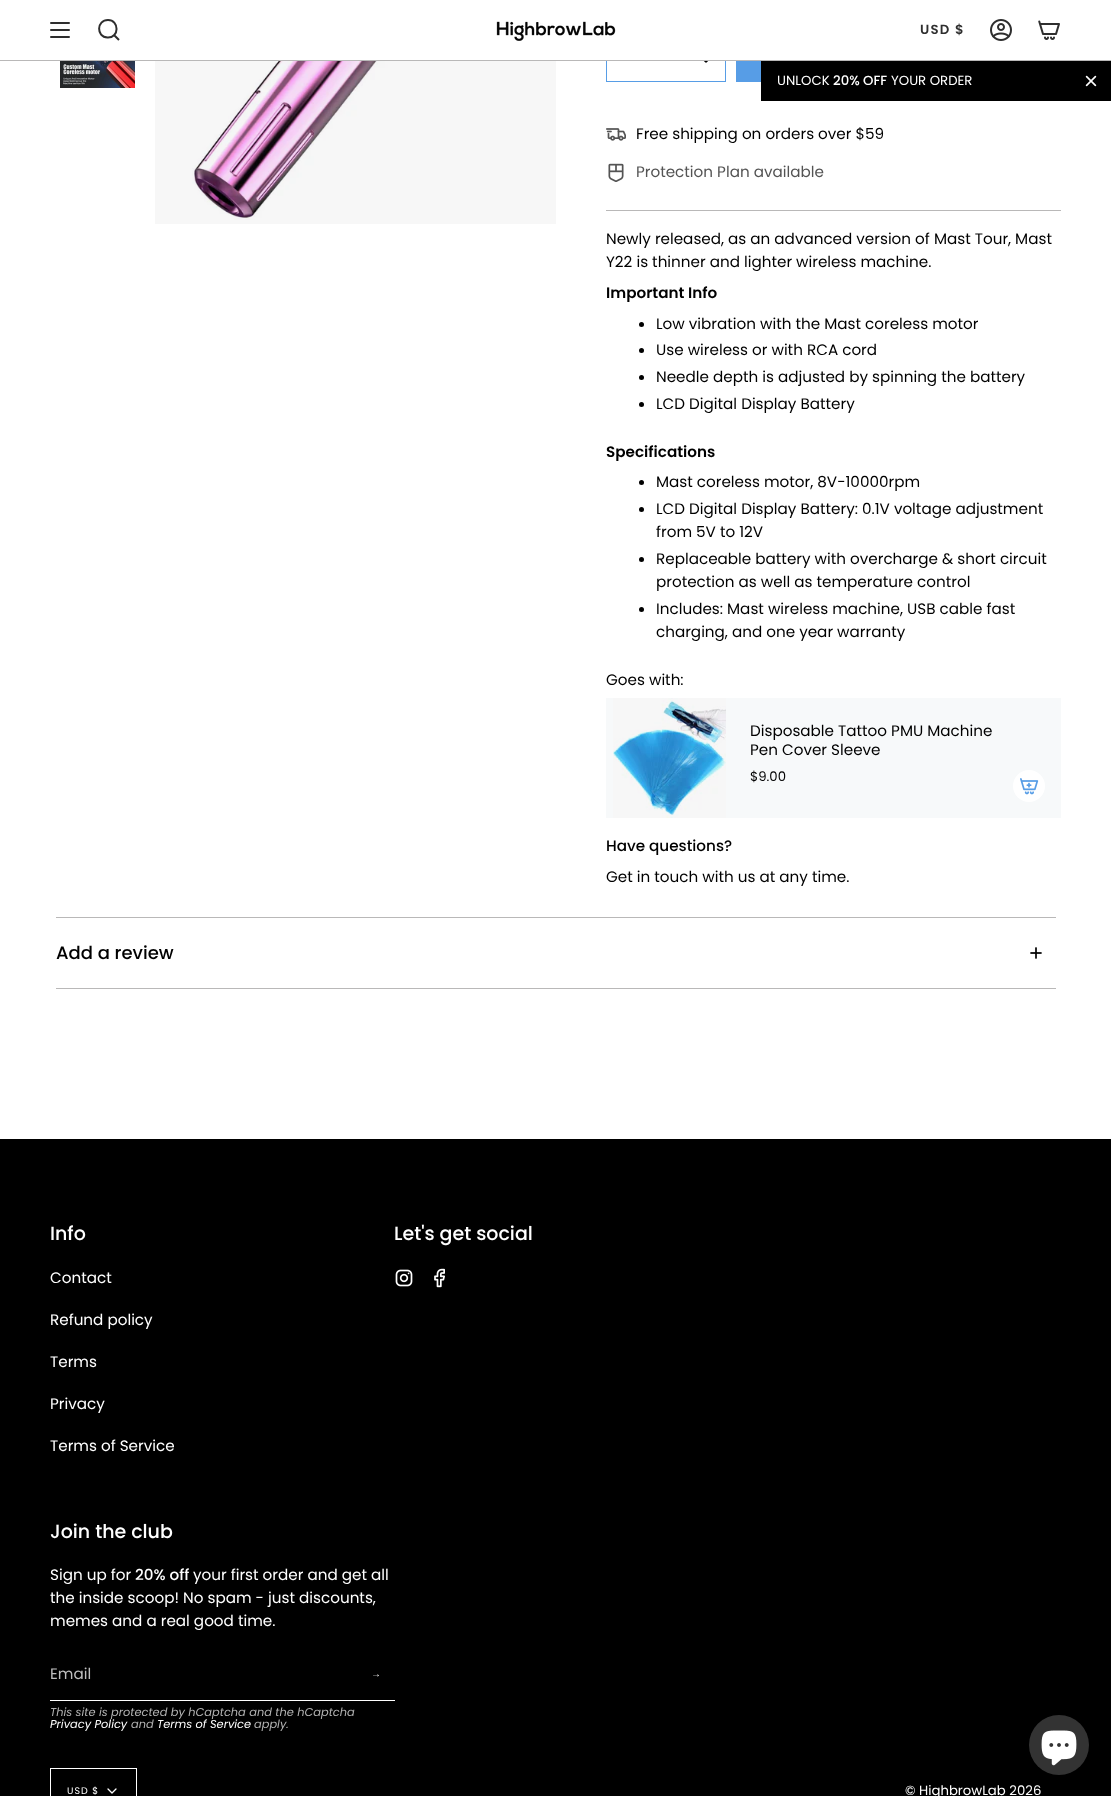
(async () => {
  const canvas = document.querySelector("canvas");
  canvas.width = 1111;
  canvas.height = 1796;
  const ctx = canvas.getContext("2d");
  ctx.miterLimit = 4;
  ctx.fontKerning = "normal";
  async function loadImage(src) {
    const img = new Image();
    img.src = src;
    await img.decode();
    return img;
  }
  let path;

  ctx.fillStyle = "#ffffff";
  ctx.fillRect(0, 0, 1111, 1796);
  ctx.strokeStyle = "#579de6";
  ctx.strokeRect(606.5, 38.5, 119, 43);
  path = new Path2D("M701.5 58L706 62L710.5 58");
  ctx.strokeStyle = "#000000";
  ctx.lineWidth = 1.5;
  ctx.lineCap = "round";
  ctx.lineJoin = "round";
  ctx.stroke(path);
  ctx.fillStyle = "#b9b8b8";
  ctx.fillRect(0, 60, 1111, 1);
  path = new Path2D("M51 23H69M51 30H69M51 37H69");
  ctx.strokeStyle = "#2e2e2e";
  ctx.lineWidth = 2;
  ctx.stroke(path);
  path = new Path2D("M108 20C119.5 20 119.5 38 107.5 37.5C96 37 96.5 20 108 20ZM114 35L119 40");
  ctx.lineCap = "butt";
  ctx.lineJoin = "miter";
  ctx.stroke(path);
  ctx.fillStyle = "#ffffff";
  ctx.fillRect(606, 38, 120, 22);
  ctx.drawImage(await loadImage("img/1.png"), 496, 21, 120, 20);
  ctx.drawImage(await loadImage("img/2.png"), 990, 19, 22, 22);
  ctx.drawImage(await loadImage("img/3.png"), 1038, 20, 22, 20);
  ctx.drawImage(await loadImage("img/4.png"), 60, 61, 75, 27);
  ctx.fillStyle = "#f7f7f7";
  ctx.fillRect(155, 61, 401, 163);
  ctx.drawImage(await loadImage("img/5.png"), 192, 61, 232, 159);
  ctx.fillStyle = "#579de6";
  ctx.fillRect(736, 61, 25, 21);
  ctx.drawImage(await loadImage("img/6.png"), 606, 128, 20, 13);
  ctx.drawImage(await loadImage("img/7.png"), 608, 163, 16, 19);
  ctx.fillStyle = "#b9b8b8";
  ctx.fillRect(606, 210, 455, 1);
  ctx.fillStyle = "#000000";
  ctx.beginPath();
  ctx.arc(641.5, 324.5, 2.5, 0, Math.PI * 2);
  ctx.fill();
  ctx.beginPath();
  ctx.arc(641.5, 350.5, 2.5, 0, Math.PI * 2);
  ctx.fill();
  ctx.beginPath();
  ctx.arc(641.5, 377.5, 2.5, 0, Math.PI * 2);
  ctx.fill();
  ctx.beginPath();
  ctx.arc(641.5, 404.5, 2.5, 0, Math.PI * 2);
  ctx.fill();
  ctx.beginPath();
  ctx.arc(641.5, 482.5, 2.5, 0, Math.PI * 2);
  ctx.fill();
  ctx.beginPath();
  ctx.arc(641.5, 509.5, 2.5, 0, Math.PI * 2);
  ctx.fill();
  ctx.beginPath();
  ctx.arc(641.5, 559.5, 2.5, 0, Math.PI * 2);
  ctx.fill();
  ctx.beginPath();
  ctx.arc(641.5, 609.5, 2.5, 0, Math.PI * 2);
  ctx.fill();
  ctx.fillStyle = "#f7f9fa";
  ctx.fillRect(606, 698, 455, 120);
  ctx.drawImage(await loadImage("img/8.png"), 613, 698, 113, 120);
  ctx.fillStyle = "#ffffff";
  ctx.beginPath();
  ctx.arc(1029, 786, 16, 0, Math.PI * 2);
  ctx.fill();
  ctx.drawImage(await loadImage("img/9.png"), 1020, 778, 19, 17);
  ctx.fillStyle = "#b9b8b8";
  ctx.fillRect(56, 917, 1000, 1);
  ctx.fillRect(56, 988, 1000, 1);
  ctx.drawImage(await loadImage("img/10.png"), 1030, 947, 12, 12);
  ctx.fillStyle = "#000000";
  ctx.fillRect(761, 61, 350, 40);
  ctx.drawImage(await loadImage("img/11.png"), 1085, 75, 12, 12);
  ctx.fillRect(0, 1139, 1111, 657);
  ctx.drawImage(await loadImage("img/12.png"), 395, 1269, 18, 18);
  ctx.drawImage(await loadImage("img/13.png"), 434, 1268, 11, 20);
  ctx.fillStyle = "#ffffff";
  ctx.fillRect(50, 1700, 345, 1);
  ctx.strokeStyle = "#ffffff";
  ctx.lineWidth = 1;
  ctx.strokeRect(50.5, 1768.5, 86, 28);
  path = new Path2D("M108 1789L112 1793L116 1789");
  ctx.lineWidth = 1.3;
  ctx.lineCap = "round";
  ctx.lineJoin = "round";
  ctx.stroke(path);
  ctx.fillStyle = "#333333";
  ctx.beginPath();
  ctx.arc(1059, 1745, 30, 0, Math.PI * 2);
  ctx.fill();
  ctx.drawImage(await loadImage("img/14.png"), 1041, 1730, 36, 36);
  ctx.letterSpacing = "1.25px";
  ctx.font = "600 13.25px Poppins";
  ctx.fillStyle = "#2e2e2e";
  ctx.fillText("USD $", 920, 34);
  ctx.letterSpacing = "0px";
  ctx.font = "15.2px Poppins";
  ctx.fillStyle = "#000000";
  ctx.fillText("Free shipping on orders over $59", 636, 139);
  ctx.fillStyle = "#545454";
  ctx.fillText("Protection Plan available", 636, 177);
  ctx.fillStyle = "#000000";
  ctx.fillText("Newly released, as an advanced version of Mast Tour, Mast", 606, 244);
  ctx.fillText("Y22 is thinner and lighter wireless machine.", 606, 267);
  ctx.font = "600 15.2px Poppins";
  ctx.fillText("Important Info", 606, 298);
  ctx.font = "15.2px Poppins";
  for (const [text, x, y] of [
    ["Low vibration with the Mast coreless motor", 656, 329],
    ["Use wireless or with RCA cord", 656, 355],
    ["Needle depth is adjusted by spinning the battery", 656, 382],
    ["LCD Digital Display Battery", 656, 409],
  ]) {
    ctx.fillText(text, x, y);
  }
  ctx.font = "600 15.2px Poppins";
  ctx.fillText("Specifications", 606, 457);
  ctx.font = "15.2px Poppins";
  for (const [text, x, y] of [
    ["Mast coreless motor, 8V-10000rpm", 656, 487],
    ["LCD Digital Display Battery: 0.1V voltage adjustment", 656, 514],
    ["from 5V to 12V", 656, 537],
    ["Replaceable battery with overcharge & short circuit", 656, 564],
    ["protection as well as temperature control", 656, 587],
    ["Includes: Mast wireless machine, USB cable fast", 656, 614],
    ["charging, and one year warranty", 656, 637],
    ["Goes with:", 606, 685],
    ["Disposable Tattoo PMU Machine", 750, 736],
    ["Pen Cover Sleeve", 750, 755],
  ]) {
    ctx.fillText(text, x, y);
  }
  ctx.font = "13.25px Poppins";
  ctx.fillText("$9.00", 750, 781);
  ctx.font = "500 15.2px Poppins";
  ctx.fillText("Have questions?", 606, 851);
  ctx.font = "15.2px Poppins";
  ctx.fillText("Get in touch with us at any time.", 606, 882);
  ctx.font = "500 18px Poppins";
  ctx.fillText("Add a review", 56, 959);
  ctx.font = "13.25px Poppins";
  ctx.fillStyle = "#ffffff";
  ctx.fillText("UNLOCK", 777, 85);
  ctx.font = "500 13.25px Poppins";
  ctx.fillText("20% OFF", 833, 85);
  ctx.font = "13.25px Poppins";
  ctx.fillText("YOUR ORDER", 891, 85);
  ctx.font = "500 19px Poppins";
  ctx.fillText("Info", 50, 1240);
  ctx.font = "15.2px Poppins";
  for (const [text, x, y] of [
    ["Contact", 50, 1283],
    ["Refund policy", 50, 1325],
    ["Terms", 50, 1367],
    ["Privacy", 50, 1409],
    ["Terms of Service", 50, 1451],
  ]) {
    ctx.fillText(text, x, y);
  }
  ctx.font = "500 19px Poppins";
  ctx.fillText("Let's get social", 394, 1240);
  ctx.fillText("Join the club", 50, 1538);
  ctx.font = "15.2px Poppins";
  ctx.fillText("Sign up for", 50, 1580);
  ctx.font = "500 15.2px Poppins";
  ctx.fillText("20% off", 135, 1580);
  ctx.font = "15.2px Poppins";
  for (const [text, x, y] of [
    ["your first order and get all", 193, 1580],
    ["the inside scoop! No spam - just discounts,", 50, 1603],
    ["memes and a real good time.", 50, 1626],
  ]) {
    ctx.fillText(text, x, y);
  }
  ctx.fillStyle = "#bfbfbf";
  ctx.fillText("Email", 50, 1679);
  ctx.letterSpacing = "1.25px";
  ctx.font = "10px Liberation Sans";
  ctx.fillStyle = "#ffffff";
  ctx.fillText("→", 371, 1677);
  ctx.letterSpacing = "0px";
  ctx.font = "italic 11.4px Poppins";
  ctx.fillStyle = "#b3b3b3";
  ctx.fillText("This site is protected by hCaptcha and the hCaptcha", 50, 1716);
  ctx.fillStyle = "#ffffff";
  ctx.fillText("Privacy Policy", 50, 1728);
  ctx.fillStyle = "#b3b3b3";
  ctx.fillText("and", 131, 1728);
  ctx.fillStyle = "#ffffff";
  ctx.fillText("Terms of Service", 157, 1728);
  ctx.fillStyle = "#b3b3b3";
  ctx.fillText("apply.", 254, 1728);
  ctx.letterSpacing = "1px";
  ctx.font = "9.5px Poppins";
  ctx.fillStyle = "#ffffff";
  ctx.fillText("USD $", 67, 1794);
  ctx.letterSpacing = "0px";
  ctx.font = "13.25px Poppins";
  ctx.fillText("© HighbrowLab 2026", 905, 1795);
})();
